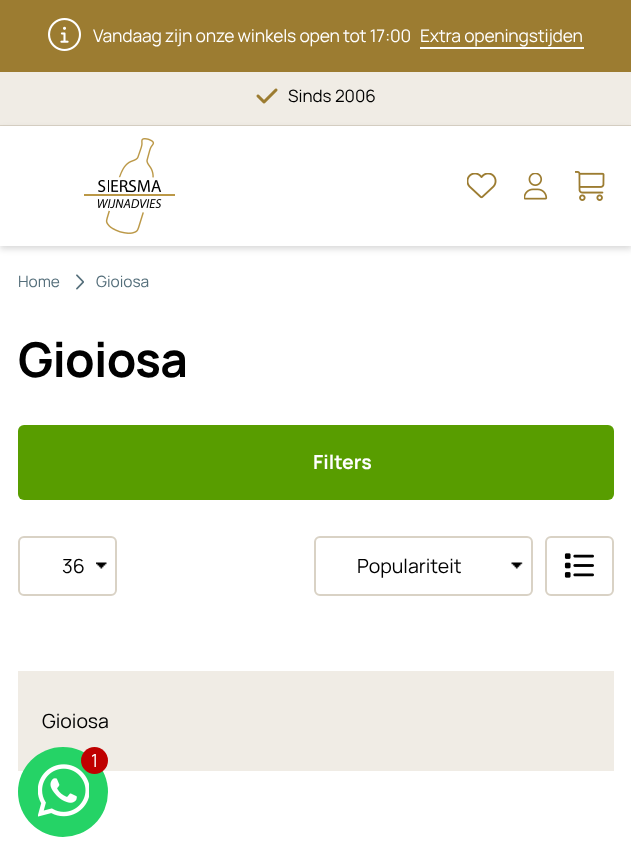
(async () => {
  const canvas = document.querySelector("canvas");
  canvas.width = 631;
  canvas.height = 855;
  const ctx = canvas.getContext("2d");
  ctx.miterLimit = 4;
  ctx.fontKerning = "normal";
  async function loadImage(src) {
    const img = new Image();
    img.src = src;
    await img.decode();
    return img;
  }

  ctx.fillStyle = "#ffffff";
  ctx.fillRect(0, 0, 631, 855);
  ctx.fillStyle = "#9c7c31";
  ctx.fillRect(0, 0, 631, 72);
  ctx.drawImage(await loadImage("img/1.png"), 48, 18, 33, 33);
  for (const [x, y, w, h, color] of [
    [420, 47, 164, 2, "#ffffff"],
    [0, 72, 631, 53, "#f0ece5"],
    [0, 125, 631, 1, "#d9d2c5"],
  ]) {
    ctx.fillStyle = color;
    ctx.fillRect(x, y, w, h);
  }
  ctx.drawImage(await loadImage("img/2.png"), 256, 88, 22, 16);
  ctx.fillStyle = "rgba(0, 0, 0, 0.15)";
  ctx.filter = "blur(3px)";
  ctx.beginPath();
  ctx.rect(0, 129, 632, 120);
  ctx.fill();
  ctx.filter = "none";
  ctx.fillStyle = "#ffffff";
  ctx.fillRect(0, 126, 631, 120);
  ctx.drawImage(await loadImage("img/3.png"), 84, 138, 91, 96);
  ctx.drawImage(await loadImage("img/4.png"), 467, 173, 30, 26);
  ctx.drawImage(await loadImage("img/5.png"), 524, 173, 24, 27);
  ctx.drawImage(await loadImage("img/6.png"), 575, 171, 30, 30);
  ctx.drawImage(await loadImage("img/7.png"), 76, 274, 8, 16);
  ctx.fillStyle = "#589d00";
  ctx.beginPath();
  ctx.roundRect(18, 425, 596, 75, 6);
  ctx.fill();
  ctx.drawImage(await loadImage("img/8.png"), 96, 562, 11, 7);
  ctx.beginPath();
  ctx.roundRect(19, 537, 97, 58, 5);
  ctx.strokeStyle = "#d9d2c5";
  ctx.lineWidth = 2;
  ctx.stroke();
  ctx.drawImage(await loadImage("img/9.png"), 511, 562, 12, 7);
  ctx.beginPath();
  ctx.roundRect(315, 537, 217, 58, 5);
  ctx.stroke();
  ctx.beginPath();
  ctx.roundRect(546, 537, 67, 58, 5);
  ctx.stroke();
  ctx.drawImage(await loadImage("img/10.png"), 564, 553, 30, 25);
  ctx.fillStyle = "#f0ece5";
  ctx.fillRect(18, 671, 596, 100);
  ctx.fillStyle = "#25d366";
  ctx.beginPath();
  ctx.arc(63, 792, 45, 0, Math.PI * 2);
  ctx.fill();
  ctx.drawImage(await loadImage("img/11.png"), 38, 764, 51, 53);
  ctx.fillStyle = "#bf0000";
  ctx.beginPath();
  ctx.arc(94.5, 760.5, 13.5, 0, Math.PI * 2);
  ctx.fill();
  ctx.letterSpacing = "-0.2px";
  ctx.font = "17.5px Manrope";
  ctx.fillStyle = "#ffffff";
  ctx.fillText("Vandaag zijn onze winkels open tot 17:00", 93, 42);
  ctx.fillText("Extra openingstijden", 420, 42);
  ctx.letterSpacing = "0px";
  ctx.font = "17px Manrope";
  ctx.fillStyle = "#000000";
  ctx.fillText("Sinds 2006", 288, 102);
  ctx.font = "15.5px Manrope";
  ctx.fillStyle = "#546e7a";
  ctx.fillText("Home", 18, 287);
  ctx.fillText("Gioiosa", 96, 287);
  ctx.letterSpacing = "-0.75px";
  ctx.font = "bold 48px Manrope";
  ctx.fillStyle = "#000000";
  ctx.fillText("Gioiosa", 18, 377);
  ctx.letterSpacing = "0px";
  ctx.font = "bold 19.5px Manrope";
  ctx.fillStyle = "#ffffff";
  ctx.fillText("Filters", 313, 469);
  ctx.font = "19.5px Manrope";
  ctx.fillStyle = "#000000";
  for (const [text, x, y] of [
    ["36", 62, 573],
    ["Populariteit", 357, 573],
    ["Gioiosa", 42, 728],
  ]) {
    ctx.fillText(text, x, y);
  }
  ctx.font = "18px Manrope";
  ctx.fillStyle = "#ffffff";
  ctx.fillText("1", 91, 767);
})();
